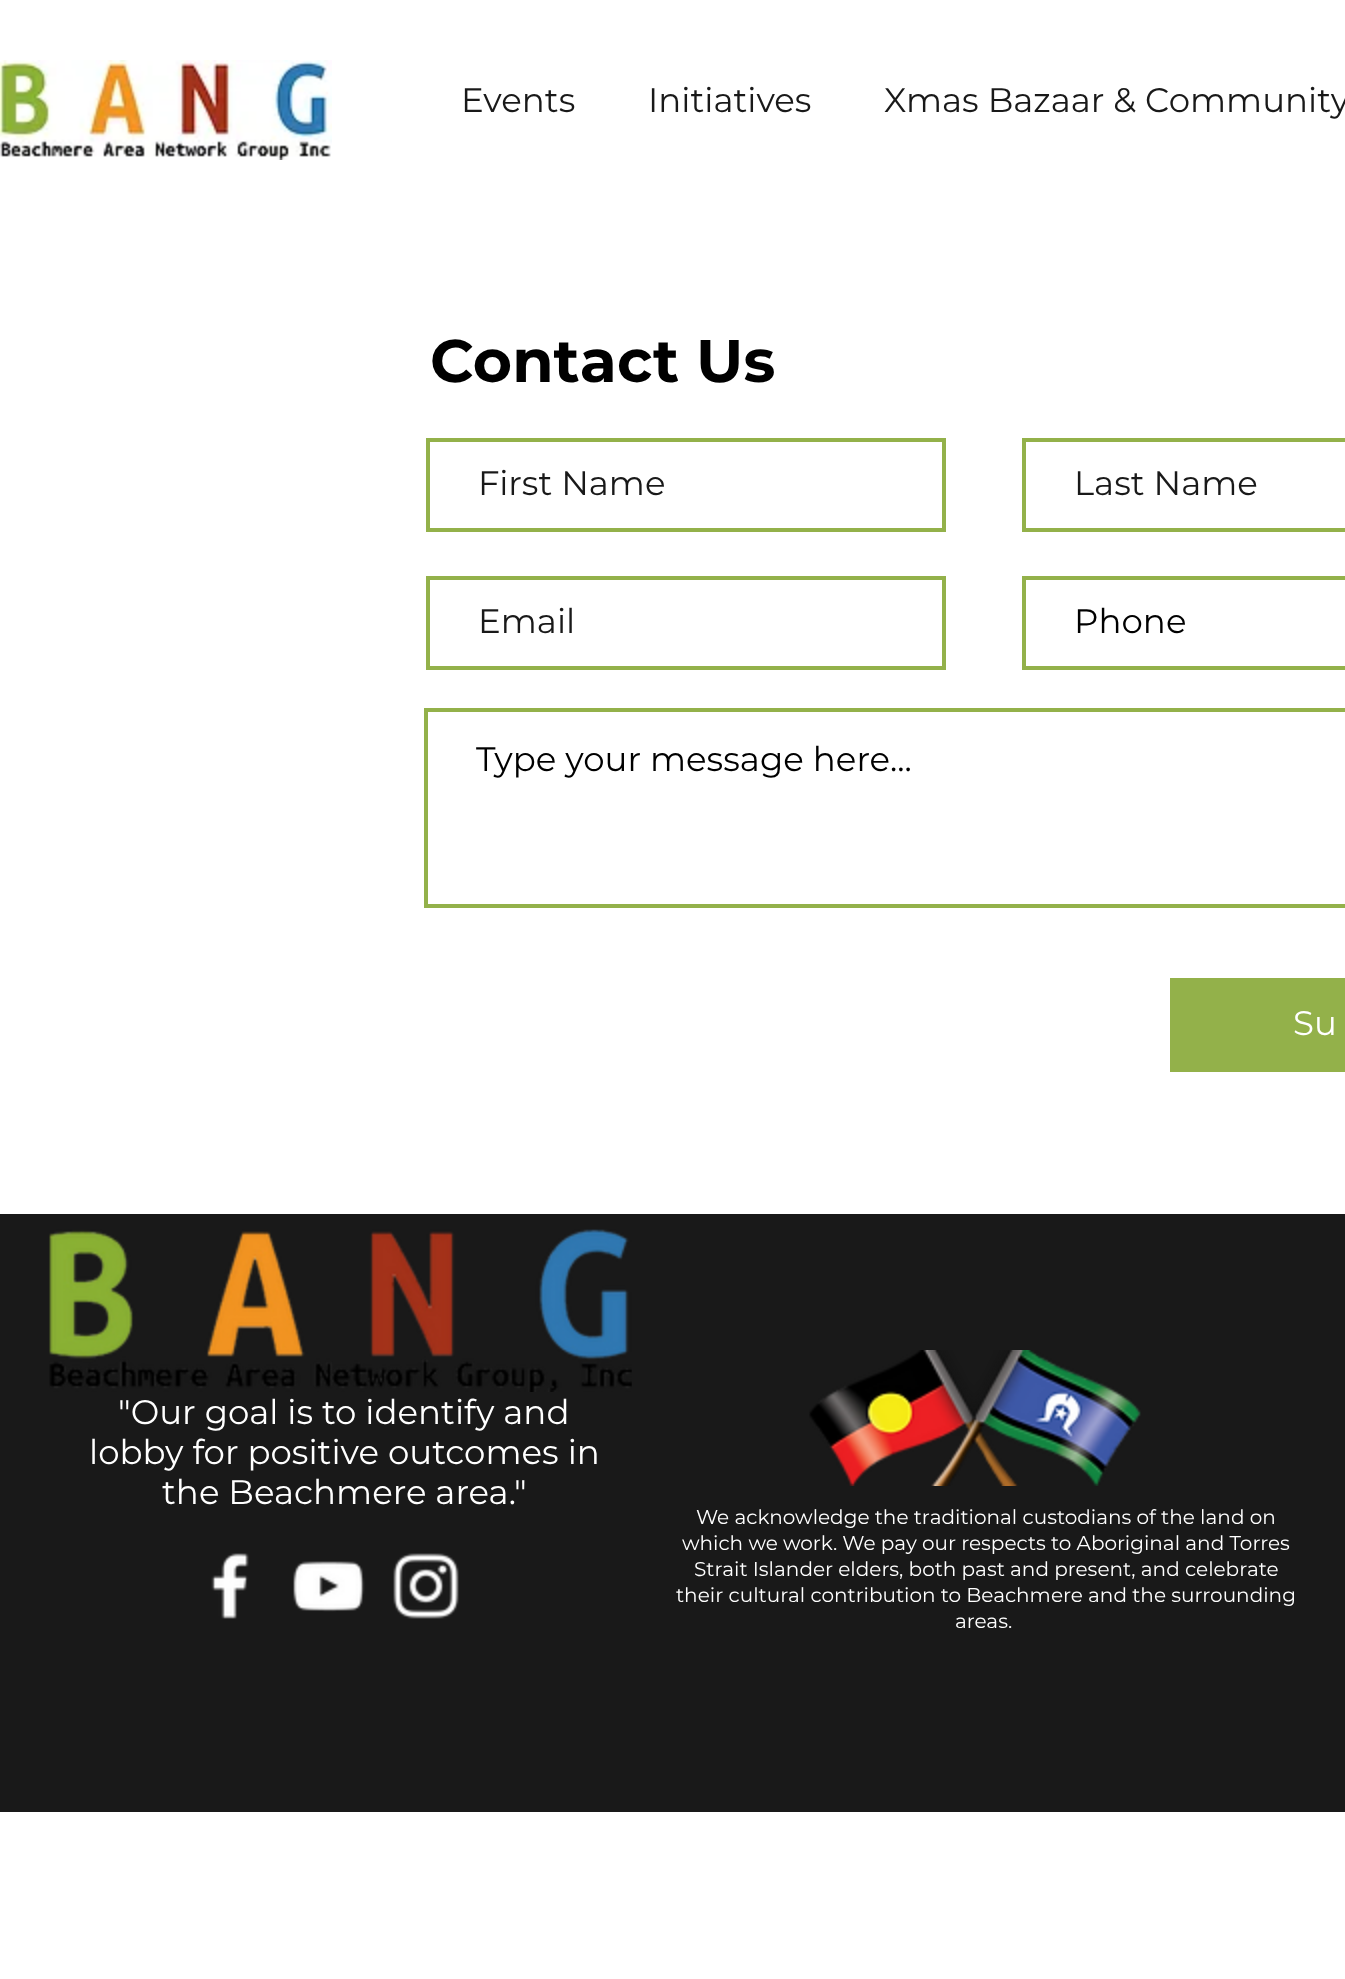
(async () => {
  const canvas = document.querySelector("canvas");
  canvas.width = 1345;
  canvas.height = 1979;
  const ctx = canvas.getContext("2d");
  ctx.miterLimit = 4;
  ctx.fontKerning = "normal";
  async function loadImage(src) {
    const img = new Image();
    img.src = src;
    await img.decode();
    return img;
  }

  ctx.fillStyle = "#ffffff";
  ctx.fillRect(0, 0, 1345, 1979);
  ctx.drawImage(await loadImage("img/1.png"), 0, 60, 332, 100);
  ctx.strokeStyle = "#93b14a";
  ctx.lineWidth = 4;
  ctx.strokeRect(428, 440, 516, 90);
  ctx.strokeRect(1024, 440, 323, 90);
  ctx.strokeRect(428, 578, 516, 90);
  ctx.strokeRect(1024, 578, 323, 90);
  ctx.strokeRect(426, 710, 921, 196);
  ctx.fillStyle = "#93b14a";
  ctx.fillRect(1170, 978, 175, 94);
  ctx.fillStyle = "#191919";
  ctx.fillRect(0, 1214, 1345, 598);
  ctx.drawImage(await loadImage("img/2.png"), 49, 1229, 583, 163);
  ctx.drawImage(await loadImage("img/3.png"), 211, 1553, 38, 66);
  ctx.drawImage(await loadImage("img/4.png"), 293, 1561, 72, 51);
  ctx.drawImage(await loadImage("img/5.png"), 393, 1553, 66, 66);
  ctx.drawImage(await loadImage("img/6.png"), 809, 1350, 332, 136);
  ctx.font = "34px Montserrat";
  for (const [text, x, y] of [
    ["Events", 461, 112],
    ["Initiatives", 648, 112],
    ["Xmas Bazaar & Community", 884, 112],
  ]) {
    ctx.fillText(text, x, y);
  }
  ctx.font = "bold 60px Montserrat";
  ctx.fillStyle = "#000000";
  ctx.fillText("Contact Us", 430, 382);
  ctx.font = "34px Montserrat";
  ctx.fillStyle = "#191919";
  for (const [text, x, y] of [
    ["First Name", 478, 495],
    ["Last Name", 1074, 495],
    ["Email", 478, 633],
  ]) {
    ctx.fillText(text, x, y);
  }
  ctx.fillStyle = "#000000";
  ctx.fillText("Phone", 1074, 633);
  ctx.fillText("Type your message here...", 476, 771);
  ctx.fillStyle = "#ffffff";
  for (const [text, x, y] of [
    ["Su", 1293, 1035],
    ["\"Our goal is to identify and", 118, 1424],
    ["lobby for positive outcomes in", 89, 1464],
    ["the Beachmere area.\"", 162, 1504],
  ]) {
    ctx.fillText(text, x, y);
  }
  ctx.font = "20px Montserrat";
  for (const [text, x, y] of [
    ["We acknowledge the traditional custodians of the land on", 696, 1524],
    ["which we work. We pay our respects to Aboriginal and Torres", 682, 1550],
    ["Strait Islander elders, both past and present, and celebrate", 694, 1576],
    ["their cultural contribution to Beachmere and the surrounding", 676, 1602],
    ["areas.", 955, 1628],
  ]) {
    ctx.fillText(text, x, y);
  }
})();
